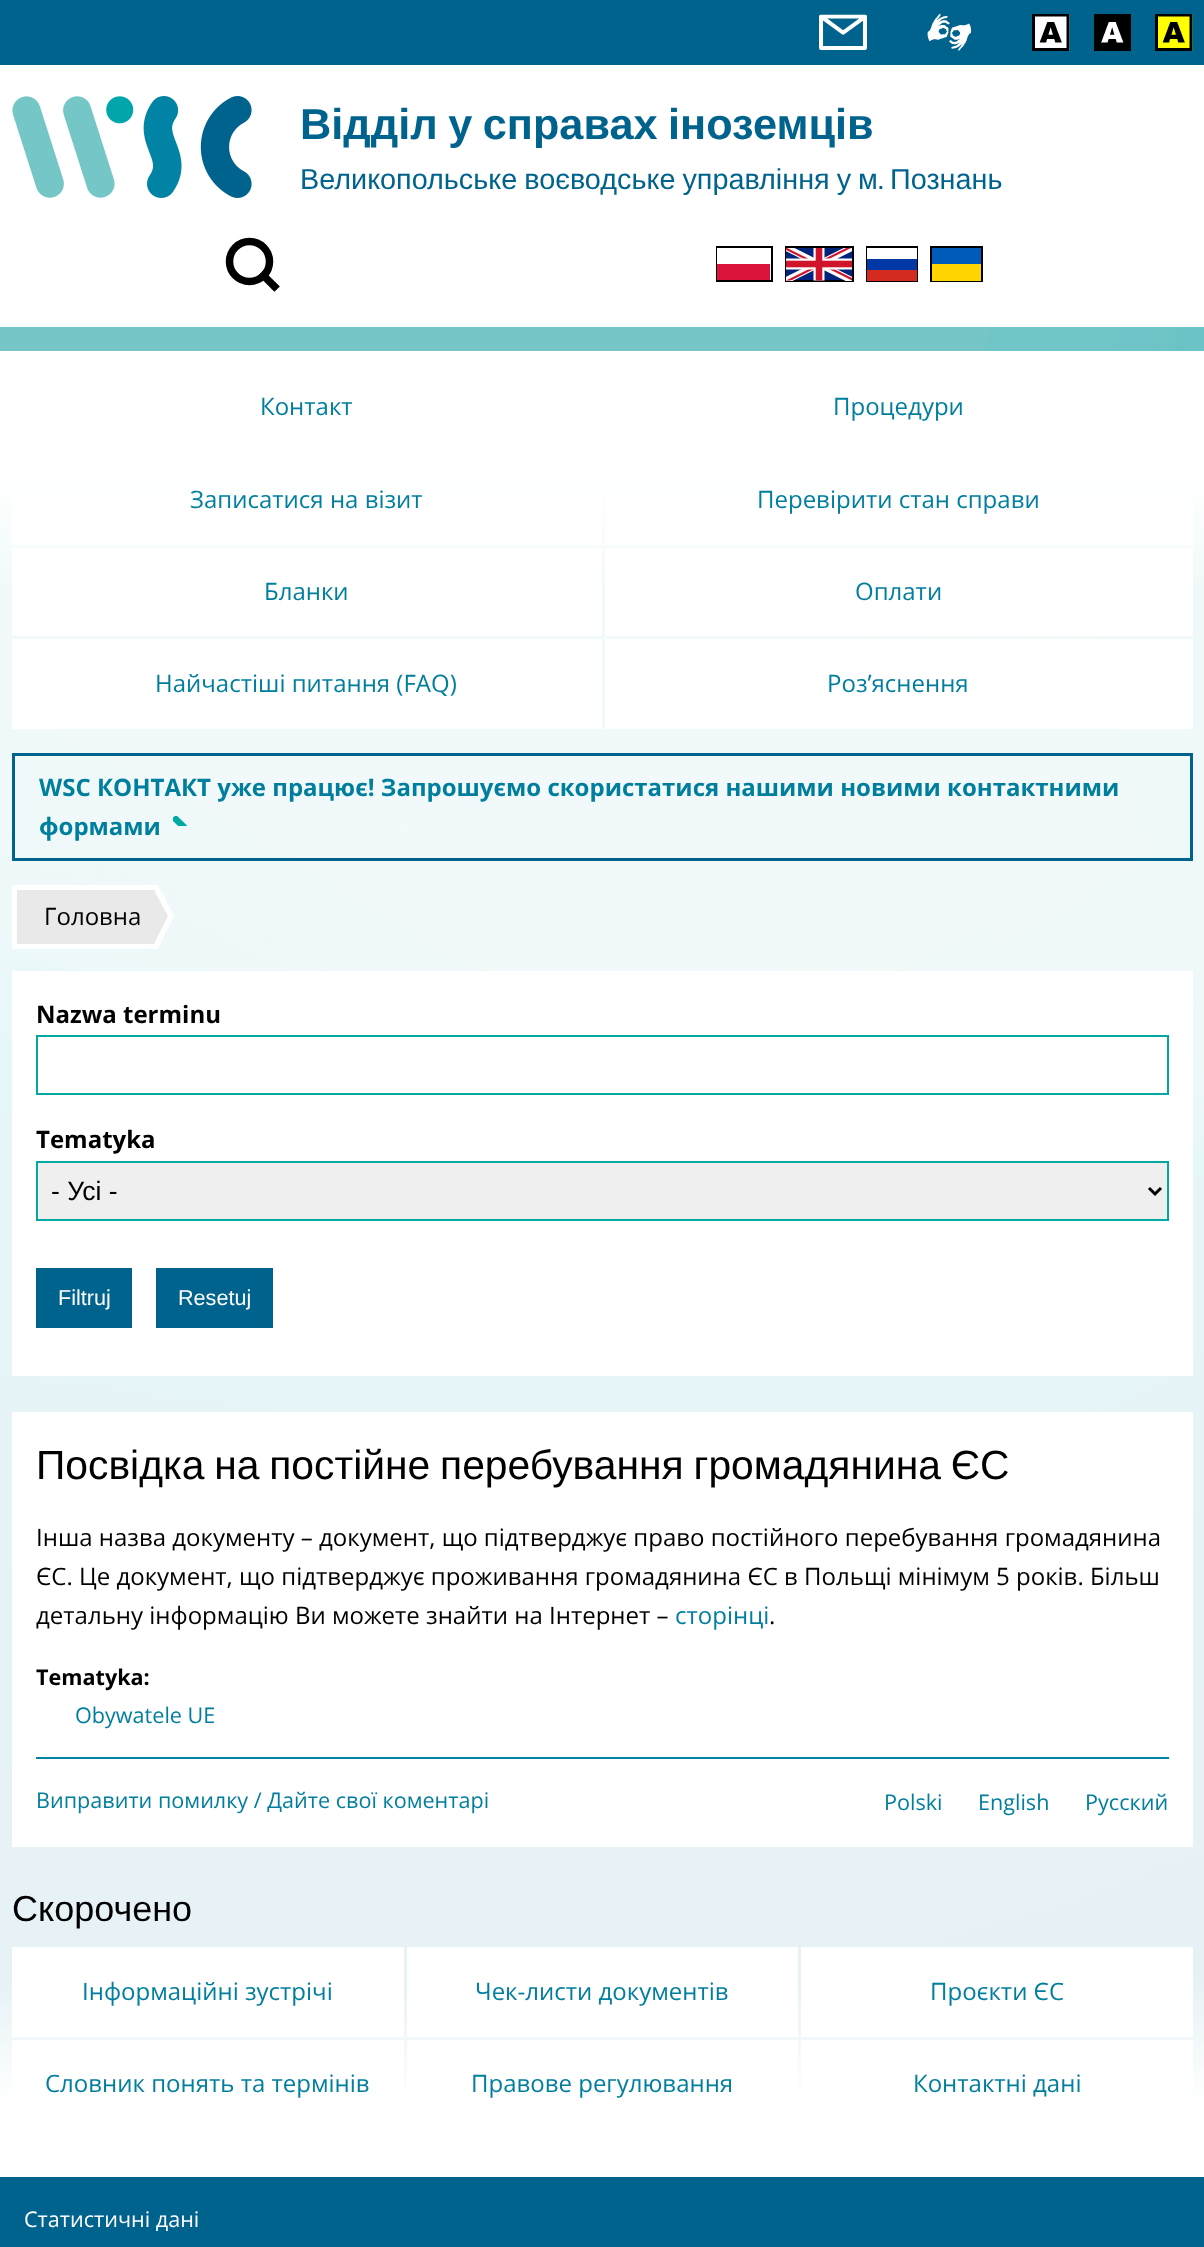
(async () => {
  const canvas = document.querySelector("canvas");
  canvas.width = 1204;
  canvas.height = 2247;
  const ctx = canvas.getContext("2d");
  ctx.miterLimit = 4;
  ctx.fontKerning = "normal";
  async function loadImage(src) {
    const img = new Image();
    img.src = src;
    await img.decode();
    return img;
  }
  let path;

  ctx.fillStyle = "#ffffff";
  ctx.fillRect(0, 0, 1204, 2247);
  ctx.drawImage(await loadImage("img/1.png"), 0, 327, 1204, 1850);
  ctx.fillStyle = "#00638e";
  ctx.fillRect(0, 0, 1204, 65);
  ctx.drawImage(await loadImage("img/2.png"), 819, 14, 48, 36);
  ctx.drawImage(await loadImage("img/3.png"), 927, 13, 45, 38);
  ctx.drawImage(await loadImage("img/4.png"), 1032, 14, 38, 37);
  ctx.drawImage(await loadImage("img/5.png"), 1094, 14, 37, 37);
  ctx.drawImage(await loadImage("img/6.png"), 1155, 14, 38, 37);
  ctx.drawImage(await loadImage("img/7.png"), 12, 96, 240, 102);
  ctx.beginPath();
  ctx.arc(249.5, 261.5, 20, 0, Math.PI * 2);
  ctx.strokeStyle = "#000000";
  ctx.lineWidth = 7.5;
  ctx.stroke();
  path = new Path2D("M274.5 286.5L263.5 275.5");
  ctx.lineCap = "square";
  ctx.lineJoin = "bevel";
  ctx.stroke(path);
  ctx.lineWidth = 2;
  ctx.lineJoin = "miter";
  ctx.strokeRect(717, 247, 55, 34);
  ctx.fillStyle = "#ffffff";
  ctx.fillRect(717, 248, 1, 16);
  ctx.fillStyle = "#dc143c";
  ctx.fillRect(717, 264, 53, 16);
  ctx.strokeRect(786, 247, 67, 34);
  ctx.drawImage(await loadImage("img/8.png"), 786, 248, 66, 33);
  ctx.strokeRect(867, 247, 50, 34);
  for (const [x, y, w, h, color] of [
    [867, 248, 50, 11, "#ffffff"],
    [867, 259, 50, 11, "#0039a6"],
    [867, 270, 50, 11, "#d52b1e"],
  ]) {
    ctx.fillStyle = color;
    ctx.fillRect(x, y, w, h);
  }
  ctx.strokeRect(931, 247, 51, 34);
  for (const [x, y, w, h, color] of [
    [932, 248, 49, 16, "#005bbb"],
    [932, 264, 49, 17, "#ffd500"],
    [12, 498, 590, 47, "#ffffff"],
    [605, 498, 588, 47, "#ffffff"],
    [12, 548, 590, 88, "#ffffff"],
    [605, 548, 588, 88, "#ffffff"],
    [12, 639, 590, 90, "#ffffff"],
    [605, 639, 588, 90, "#ffffff"],
  ]) {
    ctx.fillStyle = color;
    ctx.fillRect(x, y, w, h);
  }
  ctx.strokeStyle = "#00638e";
  ctx.lineWidth = 3;
  ctx.strokeRect(13.5, 754.5, 1178, 105);
  ctx.drawImage(await loadImage("img/9.png"), 173, 816, 14, 10);
  for (const [x, y, w, h, color] of [
    [17, 890, 138, 54, "#e9e9e9"],
    [12, 885, 146, 5, "#ffffff"],
    [155, 885, 3, 63, "#ffffff"],
    [12, 944, 146, 5, "#ffffff"],
    [12, 885, 5, 63, "#ffffff"],
  ]) {
    ctx.fillStyle = color;
    ctx.fillRect(x, y, w, h);
  }
  path = new Path2D("M158 948V885L174 916Z");
  ctx.fill(path);
  ctx.fillStyle = "#e9e9e9";
  path = new Path2D("M154 944V890L168 916Z");
  ctx.fill(path);
  ctx.fillStyle = "#ffffff";
  ctx.fillRect(12, 971, 1181, 405);
  ctx.strokeStyle = "#00aaa1";
  ctx.lineWidth = 2;
  ctx.strokeRect(37, 1036, 1131, 58);
  ctx.fillStyle = "#efefef";
  ctx.beginPath();
  ctx.rect(37, 1162, 1131, 58);
  ctx.fill();
  ctx.stroke();
  path = new Path2D("M1149 1188L1155 1194L1161 1188");
  ctx.strokeStyle = "#000000";
  ctx.lineWidth = 3;
  ctx.lineCap = "butt";
  ctx.stroke(path);
  for (const [x, y, w, h, color] of [
    [36, 1268, 96, 60, "#00638e"],
    [156, 1268, 117, 60, "#00638e"],
    [12, 1412, 1181, 435, "#ffffff"],
    [36, 1757, 1133, 2, "#0083a5"],
    [12, 1947, 392, 90, "#ffffff"],
    [407, 1947, 391, 90, "#ffffff"],
    [801, 1947, 392, 90, "#ffffff"],
    [12, 2040, 392, 51, "#ffffff"],
    [407, 2040, 391, 51, "#ffffff"],
    [801, 2040, 392, 51, "#ffffff"],
    [0, 2177, 1204, 70, "#00638e"],
  ]) {
    ctx.fillStyle = color;
    ctx.fillRect(x, y, w, h);
  }
  ctx.wordSpacing = "-1.5px";
  ctx.font = "bold 43.25px Liberation Sans";
  ctx.fillText("Відділ у справах іноземців", 300, 139);
  ctx.wordSpacing = "-1px";
  ctx.font = "28.8px Liberation Sans";
  ctx.fillText("Великопольське воєводське управління у м", 300, 189);
  ctx.wordSpacing = "0px";
  ctx.font = "28.8px Asap";
  ctx.fillText(".", 878, 189);
  ctx.font = "28.8px Liberation Sans";
  ctx.fillText("Познань", 890, 189);
  ctx.font = "24px Open Sans";
  ctx.fillStyle = "#007e9e";
  for (const [text, x, y] of [
    ["Контакт", 260, 415],
    ["Процедури", 833, 415],
    ["Записатися на візит", 190, 508],
    ["Перевірити стан справи", 757, 508],
    ["Бланки", 264, 600],
    ["Оплати", 855, 600],
    ["Найчастіші питання (FAQ)", 155, 692],
    ["Роз’яснення", 827, 692],
  ]) {
    ctx.fillText(text, x, y);
  }
  ctx.font = "bold 24px Open Sans";
  ctx.fillText("WSC КОНТАКТ уже працює! Запрошуємо скористатися нашими новими контактними", 39, 796);
  ctx.fillText("формами", 39, 835);
  ctx.font = "24px Open Sans";
  ctx.fillStyle = "#000000";
  ctx.fillText("Головна", 44, 925);
  ctx.font = "bold 24px Open Sans";
  ctx.fillText("Nazwa terminu", 36, 1023);
  ctx.fillText("Tematyka", 36, 1148);
  ctx.font = "26.5px Liberation Sans";
  ctx.fillText("- Усі -", 51, 1200);
  ctx.font = "21.6px Liberation Sans";
  ctx.fillStyle = "#ffffff";
  ctx.fillText("Filtruj", 58, 1305);
  ctx.fillText("Resetuj", 178, 1305);
  ctx.wordSpacing = "-1.5px";
  ctx.font = "40.8px Liberation Sans";
  ctx.fillStyle = "#000000";
  ctx.fillText("Посвідка на постійне перебування громадянина ЄС", 36, 1479);
  ctx.wordSpacing = "0px";
  ctx.font = "24px Open Sans";
  for (const [text, x, y] of [
    ["Інша назва документу – документ, що підтверджує право постійного перебування громадянина", 36, 1546],
    ["ЄС. Це документ, що підтверджує проживання громадянина ЄС в Польщі мінімум 5 років. Більш", 36, 1585],
    ["детальну інформацію Ви можете знайти на Інтернет –", 36, 1624],
  ]) {
    ctx.fillText(text, x, y);
  }
  ctx.fillStyle = "#007e9e";
  ctx.fillText("сторінці", 675, 1624);
  ctx.fillStyle = "#000000";
  ctx.fillText(".", 769, 1624);
  ctx.font = "bold 21.6px Open Sans";
  ctx.fillText("Tematyka:", 36, 1685);
  ctx.font = "21.6px Open Sans";
  ctx.fillStyle = "#007e9e";
  for (const [text, x, y] of [
    ["Obywatele UE", 75, 1723],
    ["Виправити помилку / Дайте свої коментарі", 36, 1808],
    ["Polski", 884, 1810],
    ["English", 978, 1810],
    ["Русский", 1085, 1810],
  ]) {
    ctx.fillText(text, x, y);
  }
  ctx.font = "36px Liberation Sans";
  ctx.fillStyle = "#000000";
  ctx.fillText("Скорочено", 12, 1921);
  ctx.font = "24px Open Sans";
  ctx.fillStyle = "#007e9e";
  for (const [text, x, y] of [
    ["Інформаційні зустрічі", 82, 2000],
    ["Чек-листи документів", 475, 2000],
    ["Проєкти ЄС", 930, 2000],
    ["Словник понять та термінів", 45, 2092],
    ["Правове регулювання", 471, 2092],
    ["Контактні дані", 913, 2092],
  ]) {
    ctx.fillText(text, x, y);
  }
  ctx.font = "21.6px Open Sans";
  ctx.fillStyle = "#ffffff";
  ctx.fillText("Статистичні дані", 24, 2227);
})();
